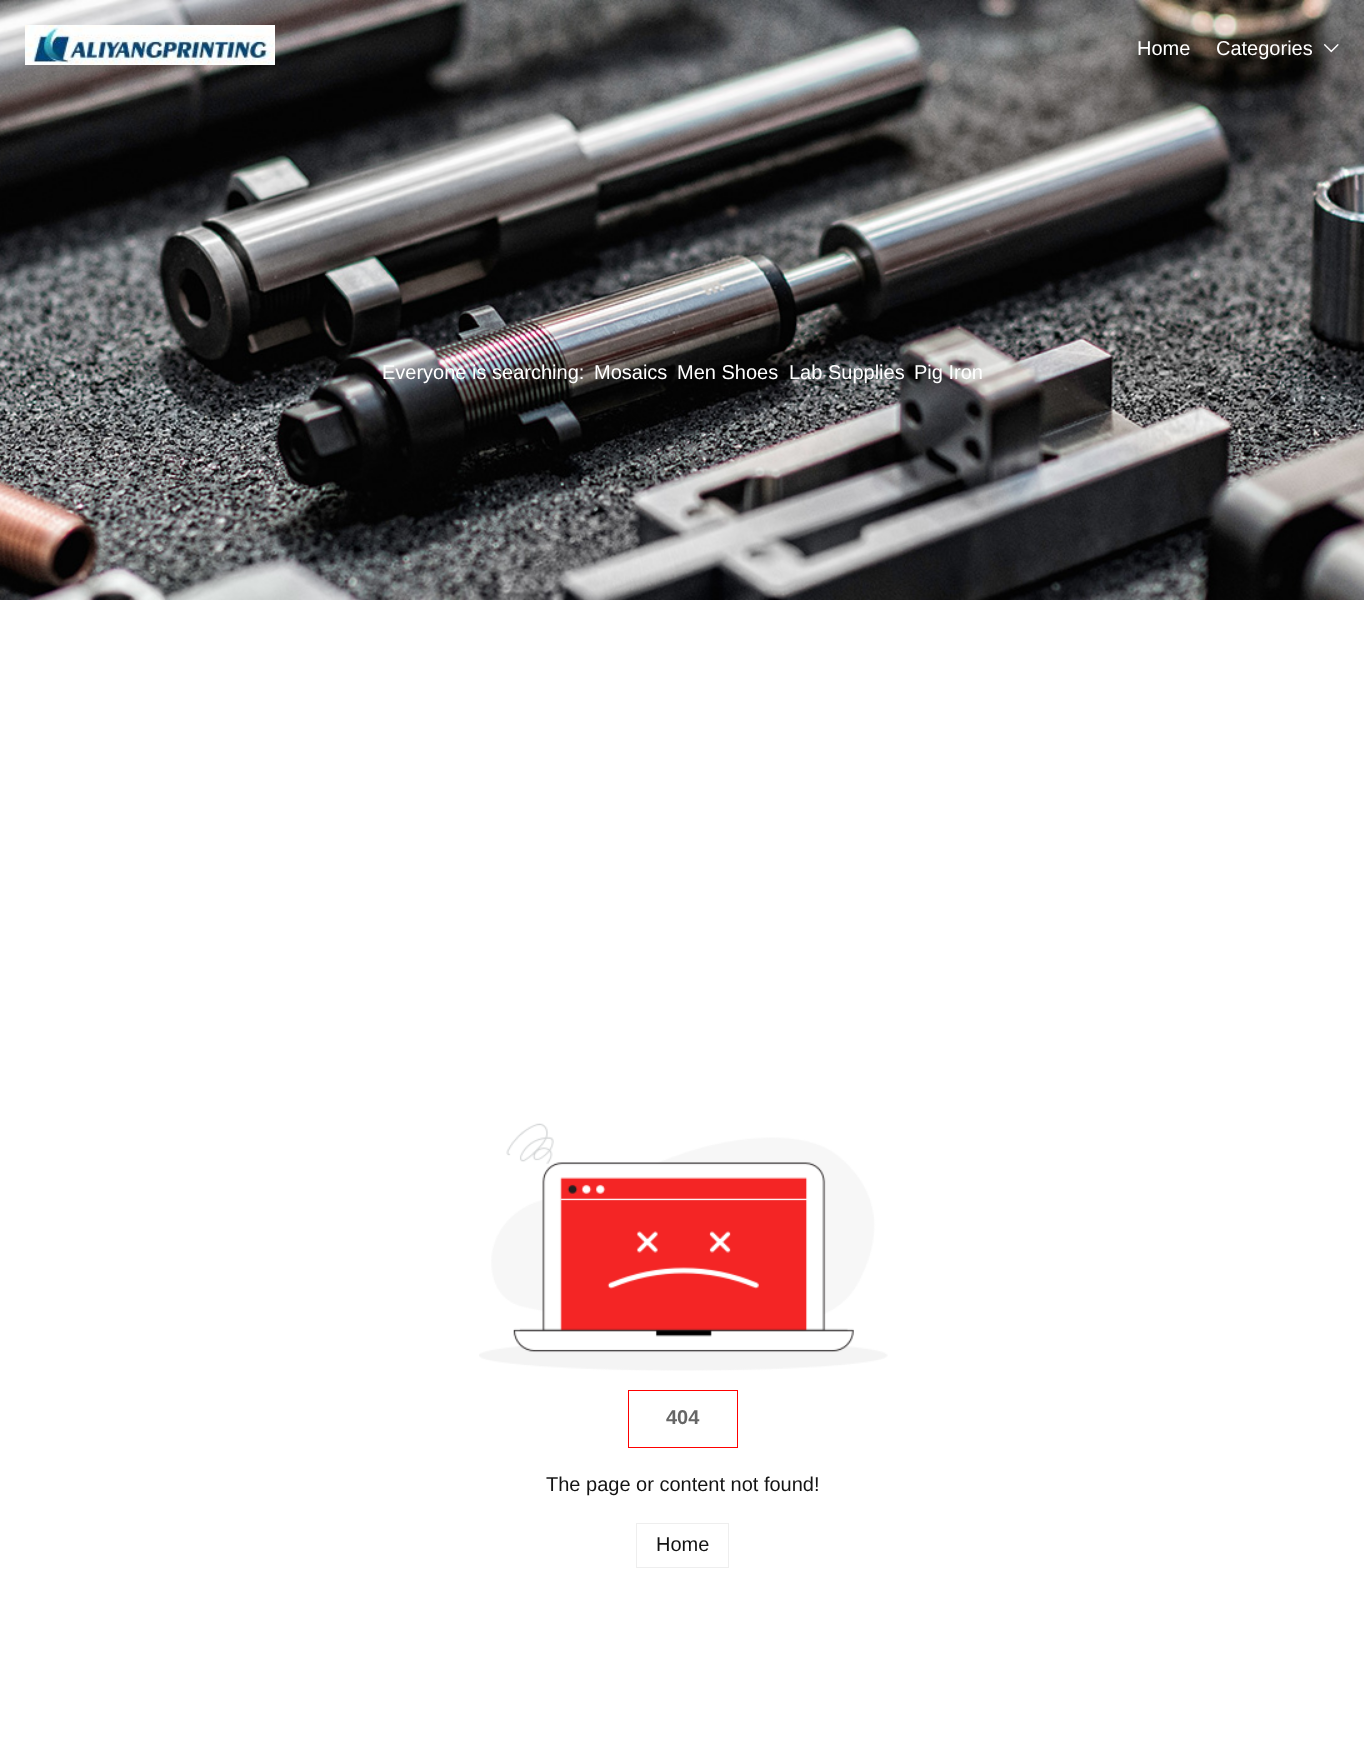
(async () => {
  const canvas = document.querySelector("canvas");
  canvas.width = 1364;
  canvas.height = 1751;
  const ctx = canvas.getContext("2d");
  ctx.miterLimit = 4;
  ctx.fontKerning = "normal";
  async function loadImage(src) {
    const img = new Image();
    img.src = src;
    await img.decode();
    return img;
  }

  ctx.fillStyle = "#ffffff";
  ctx.fillRect(0, 0, 1364, 1751);
  ctx.drawImage(await loadImage("img/1.png"), 0, 0, 1364, 600);
  ctx.drawImage(await loadImage("img/2.png"), 25, 25, 250, 40);
  ctx.drawImage(await loadImage("img/3.png"), 1324, 44, 15, 9);
  ctx.drawImage(await loadImage("img/4.png"), 479, 1123, 409, 248);
  ctx.strokeStyle = "#ff0000";
  ctx.strokeRect(628.5, 1390.5, 109, 57);
  ctx.strokeStyle = "#eeeeee";
  ctx.strokeRect(636.5, 1523.5, 92, 44);
  ctx.font = "20px Liberation Sans";
  for (const [text, x, y] of [
    ["Home", 1137, 55],
    ["Categories", 1216, 55],
    ["Everyone is searching:", 382, 379],
    ["Mosaics", 594, 379],
    ["Men Shoes", 677, 379],
    ["Lab Supplies", 789, 379],
    ["Pig Iron", 914, 379],
  ]) {
    ctx.fillText(text, x, y);
  }
  ctx.font = "bold 20px Liberation Sans";
  ctx.fillStyle = "#666666";
  ctx.fillText("404", 666, 1424);
  ctx.font = "20px Liberation Sans";
  ctx.fillStyle = "#131313";
  ctx.fillText("The page or content not found!", 546, 1491);
  ctx.fillText("Home", 656, 1551);
})();
